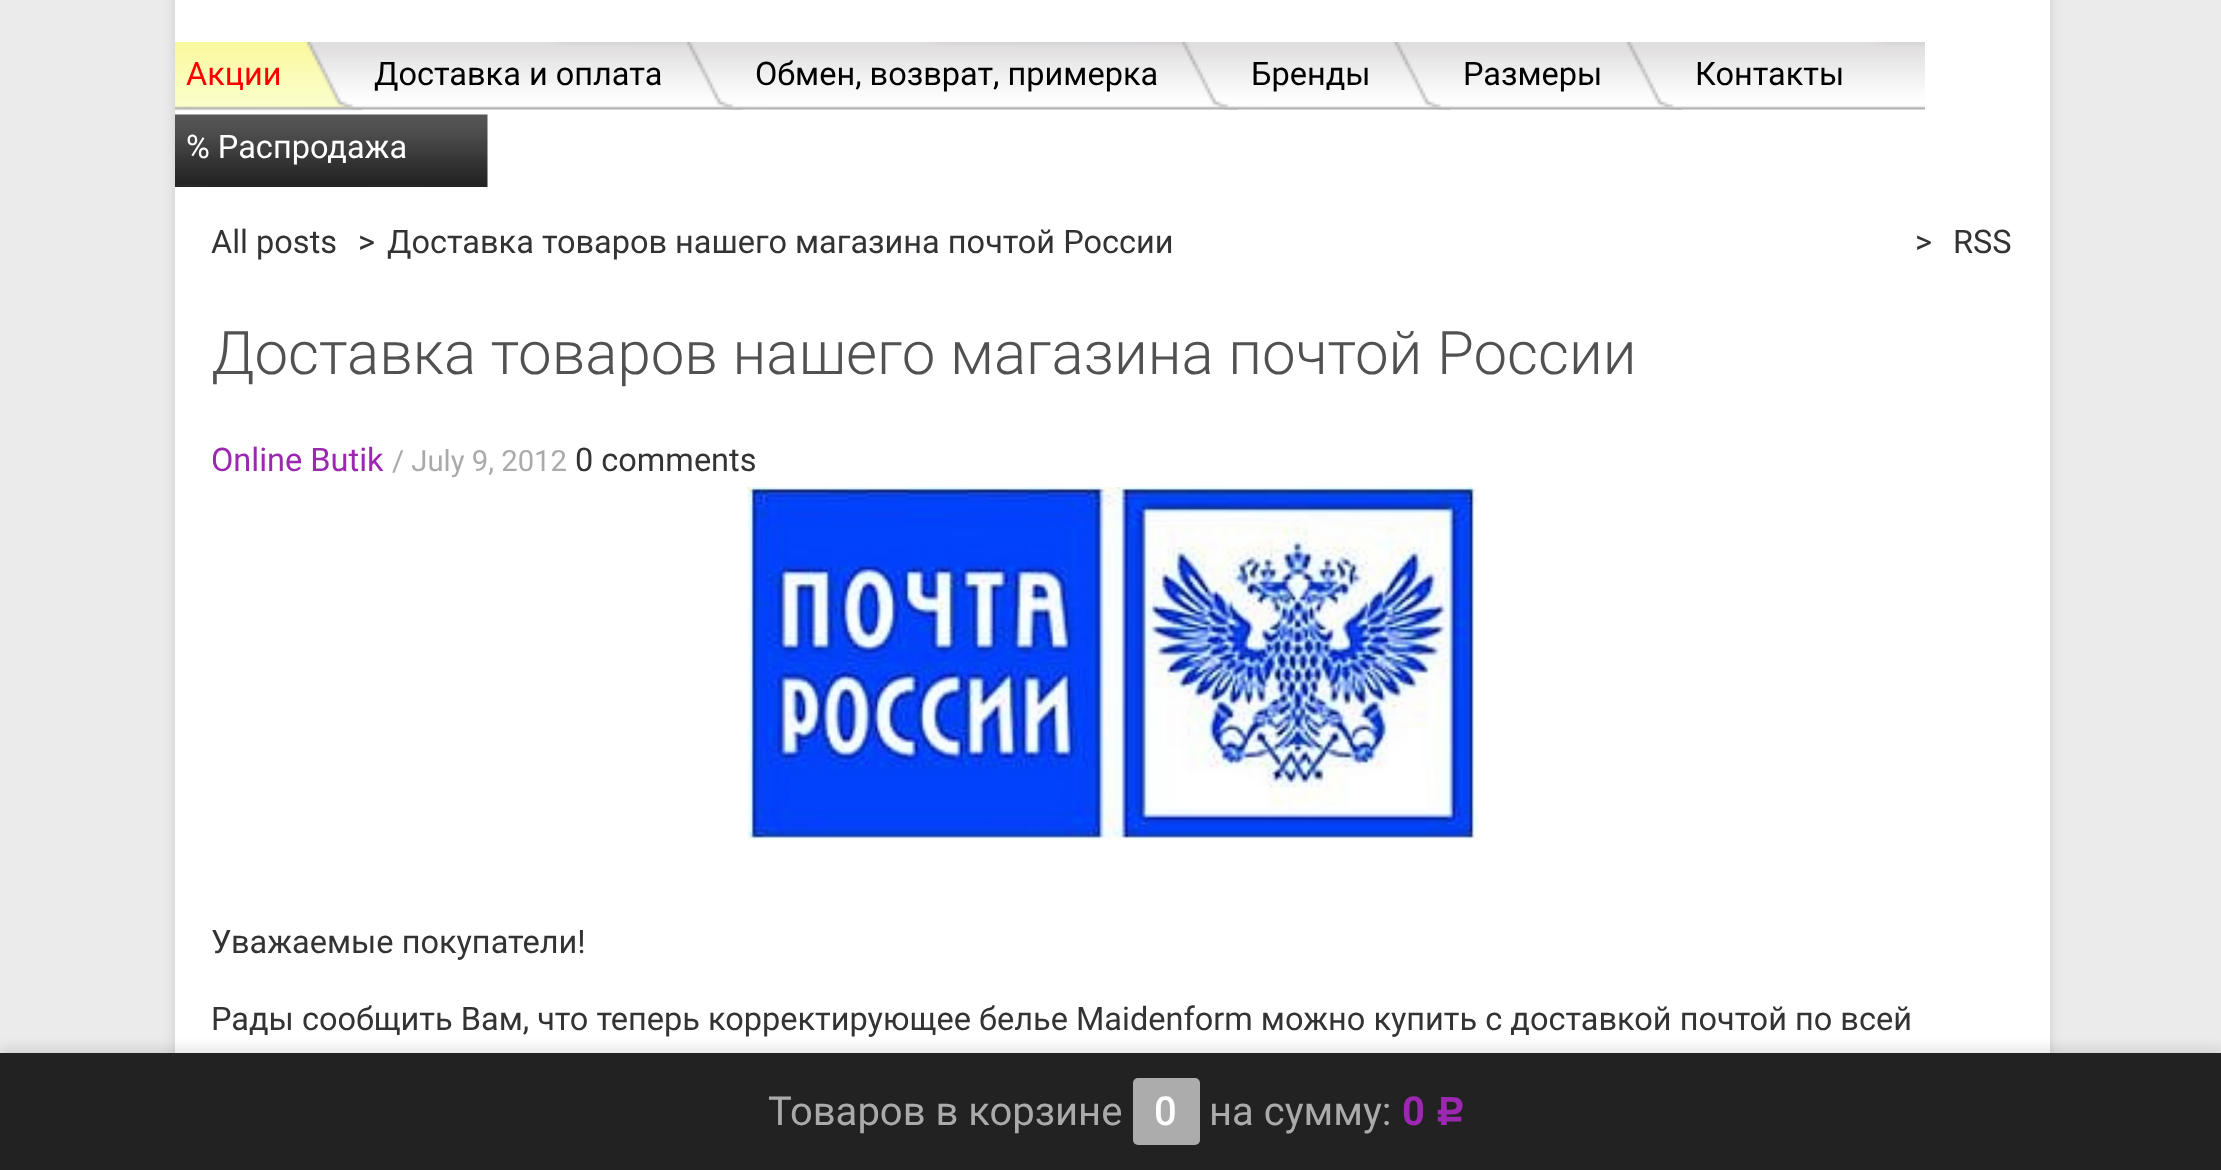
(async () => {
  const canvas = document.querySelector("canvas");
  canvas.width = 2221;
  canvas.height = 1170;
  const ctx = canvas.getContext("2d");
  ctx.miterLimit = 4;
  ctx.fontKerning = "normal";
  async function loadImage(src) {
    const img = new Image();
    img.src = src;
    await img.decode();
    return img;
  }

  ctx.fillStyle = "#ebebeb";
  ctx.fillRect(0, 0, 2221, 1170);
  ctx.fillStyle = "#cccccc";
  ctx.filter = "blur(6px)";
  ctx.beginPath();
  ctx.rect(175, -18, 1875, 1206);
  ctx.fill();
  ctx.filter = "none";
  ctx.fillStyle = "#ffffff";
  ctx.fillRect(175, 0, 1875, 1053);
  ctx.drawImage(await loadImage("img/1.png"), 175, 42, 188, 69);
  ctx.drawImage(await loadImage("img/2.png"), 306, 42, 437, 68);
  ctx.drawImage(await loadImage("img/3.png"), 686, 42, 552, 68);
  ctx.drawImage(await loadImage("img/4.png"), 1181, 42, 269, 68);
  ctx.drawImage(await loadImage("img/5.png"), 1394, 42, 289, 68);
  ctx.drawImage(await loadImage("img/6.png"), 1626, 42, 299, 68);
  ctx.drawImage(await loadImage("img/7.png"), 175, 114, 313, 73);
  ctx.drawImage(await loadImage("img/8.png"), 747, 487, 731, 353);
  ctx.fillStyle = "rgba(0, 0, 0, 0.1)";
  ctx.filter = "blur(6px)";
  ctx.beginPath();
  ctx.rect(0, 1048, 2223, 117);
  ctx.fill();
  ctx.filter = "none";
  ctx.fillStyle = "#222222";
  ctx.fillRect(0, 1053, 2221, 117);
  ctx.fillStyle = "#acacac";
  ctx.beginPath();
  ctx.roundRect(1133, 1078, 67, 67, 5);
  ctx.fill();
  ctx.font = "32.5px Roboto";
  ctx.fillStyle = "#ff0000";
  ctx.fillText("Акции", 186, 85);
  ctx.fillStyle = "#000000";
  for (const [text, x, y] of [
    ["Доставка и оплата", 374, 85],
    ["Обмен, возврат, примерка", 755, 85],
    ["Бренды", 1251, 85],
    ["Размеры", 1463, 85],
    ["Контакты", 1695, 85],
  ]) {
    ctx.fillText(text, x, y);
  }
  ctx.fillStyle = "#ffffff";
  ctx.fillText("% Распродажа", 186, 158);
  ctx.fillStyle = "#333333";
  for (const [text, x, y] of [
    ["All posts", 211, 253],
    [">", 358, 253],
    ["Доставка товаров нашего магазина почтой России", 387, 253],
    [">", 1915, 253],
    ["RSS", 1953, 253],
  ]) {
    ctx.fillText(text, x, y);
  }
  ctx.font = "300 60px Roboto";
  ctx.fillStyle = "#515151";
  ctx.fillText("Доставка товаров нашего магазина почтой России", 211, 374);
  ctx.font = "32.5px Roboto";
  ctx.fillStyle = "#9c27b0";
  ctx.fillText("Online Butik", 211, 471);
  ctx.font = "29.25px Roboto";
  ctx.fillStyle = "#aaaaaa";
  ctx.fillText("/ July 9, 2012", 392, 471);
  ctx.font = "32.5px Roboto";
  ctx.fillStyle = "#333333";
  for (const [text, x, y] of [
    ["0 comments", 575, 471],
    ["Уважаемые покупатели!", 211, 953],
    ["Рады сообщить Вам, что теперь корректирующее белье Maidenform можно купить с доставкой почтой по всей", 211, 1030],
  ]) {
    ctx.fillText(text, x, y);
  }
  ctx.font = "40px Roboto";
  ctx.fillStyle = "#aaaaaa";
  ctx.fillText("Товаров в корзине", 768, 1125);
  ctx.font = "500 40px Roboto";
  ctx.fillStyle = "#ffffff";
  ctx.fillText("0", 1154, 1125);
  ctx.font = "40px Roboto";
  ctx.fillStyle = "#aaaaaa";
  ctx.fillText("на сумму:", 1209, 1125);
  ctx.font = "bold 40px Roboto";
  ctx.fillStyle = "#9c27b0";
  ctx.fillText("0", 1402, 1125);
  ctx.font = "bold 40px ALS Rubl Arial";
  ctx.fillText("Р", 1435, 1125);
})();
